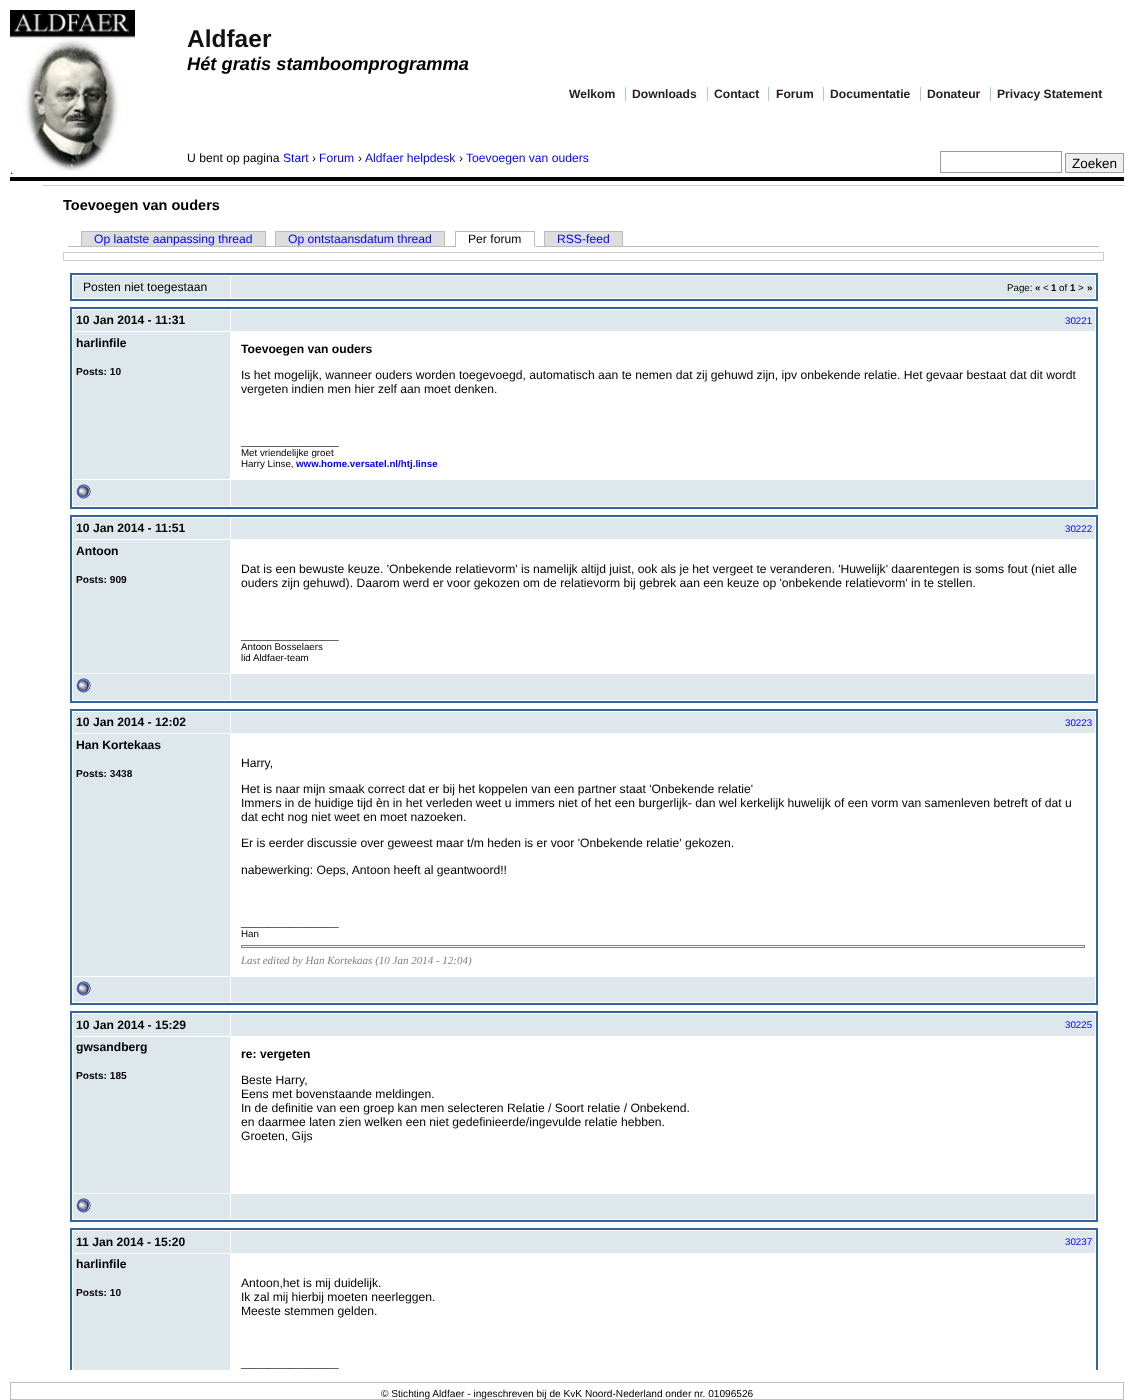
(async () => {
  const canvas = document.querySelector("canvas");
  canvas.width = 1134;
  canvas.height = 1400;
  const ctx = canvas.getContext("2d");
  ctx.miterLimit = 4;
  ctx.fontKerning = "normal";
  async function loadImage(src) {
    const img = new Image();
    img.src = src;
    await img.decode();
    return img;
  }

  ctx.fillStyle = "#ffffff";
  ctx.fillRect(0, 0, 1134, 1400);
  ctx.drawImage(await loadImage("img/1.png"), 10, 10, 125, 161);
  for (const [x, y, w, h, color] of [
    [625, 87, 1, 14, "#99ccff"],
    [707, 87, 1, 14, "#99ccff"],
    [768, 87, 1, 14, "#99ccff"],
    [823, 87, 1, 14, "#99ccff"],
    [920, 87, 1, 14, "#99ccff"],
    [990, 87, 1, 14, "#99ccff"],
  ]) {
    ctx.fillStyle = color;
    ctx.fillRect(x, y, w, h);
  }
  ctx.strokeStyle = "#999999";
  ctx.strokeRect(940.5, 151.5, 121, 21);
  ctx.fillStyle = "#efefef";
  ctx.beginPath();
  ctx.rect(1065.5, 153.5, 58, 19);
  ctx.fill();
  ctx.stroke();
  for (const [x, y, w, h, color] of [
    [10, 177, 1114, 4, "#000000"],
    [43, 185, 1081, 1, "#cccccc"],
    [68, 246, 1031, 1, "#bbbbbb"],
    [82, 232, 183, 14, "#dddddd"],
    [81, 231, 185, 1, "#bbbbbb"],
    [265, 231, 1, 15, "#bbbbbb"],
    [81, 231, 1, 15, "#bbbbbb"],
    [276, 232, 168, 14, "#dddddd"],
    [275, 231, 170, 1, "#bbbbbb"],
    [444, 231, 1, 15, "#bbbbbb"],
    [275, 231, 1, 15, "#bbbbbb"],
    [455, 231, 80, 1, "#bbbbbb"],
    [534, 231, 1, 16, "#bbbbbb"],
    [455, 246, 80, 1, "#ffffff"],
    [455, 231, 1, 16, "#bbbbbb"],
    [545, 232, 77, 14, "#dddddd"],
    [544, 231, 79, 1, "#bbbbbb"],
    [622, 231, 1, 15, "#bbbbbb"],
    [544, 231, 1, 15, "#bbbbbb"],
  ]) {
    ctx.fillStyle = color;
    ctx.fillRect(x, y, w, h);
  }
  ctx.strokeStyle = "#cccccc";
  ctx.strokeRect(63.5, 252.5, 1040, 8);
  ctx.strokeStyle = "#336699";
  ctx.lineWidth = 2;
  ctx.strokeRect(71, 274, 1026, 26);
  ctx.fillStyle = "#dee7ec";
  ctx.fillRect(73, 276, 157, 22);
  ctx.fillRect(231, 276, 864, 22);
  ctx.strokeRect(71, 308, 1026, 200);
  for (const [x, y, w, h, color] of [
    [73, 310, 157, 21, "#dee7ec"],
    [231, 310, 864, 21, "#dee7ec"],
    [73, 332, 157, 147, "#dee7ec"],
    [73, 480, 157, 26, "#dee7ec"],
  ]) {
    ctx.fillStyle = color;
    ctx.fillRect(x, y, w, h);
  }
  ctx.drawImage(await loadImage("img/2.png"), 76, 484, 15, 15);
  ctx.fillRect(231, 480, 864, 26);
  ctx.strokeRect(71, 516, 1026, 186);
  for (const [x, y, w, h, color] of [
    [73, 518, 157, 21, "#dee7ec"],
    [231, 518, 864, 21, "#dee7ec"],
    [73, 540, 157, 133, "#dee7ec"],
    [73, 674, 157, 26, "#dee7ec"],
  ]) {
    ctx.fillStyle = color;
    ctx.fillRect(x, y, w, h);
  }
  ctx.drawImage(await loadImage("img/2.png"), 76, 678, 15, 15);
  ctx.fillRect(231, 674, 864, 26);
  ctx.strokeRect(71, 710, 1026, 294);
  for (const [x, y, w, h, color] of [
    [73, 712, 157, 21, "#dee7ec"],
    [231, 712, 864, 21, "#dee7ec"],
    [73, 734, 157, 242, "#dee7ec"],
  ]) {
    ctx.fillStyle = color;
    ctx.fillRect(x, y, w, h);
  }
  ctx.strokeStyle = "#808080";
  ctx.lineWidth = 1;
  ctx.strokeRect(241.5, 945.5, 843, 2);
  ctx.fillRect(73, 977, 157, 25);
  ctx.drawImage(await loadImage("img/2.png"), 76, 981, 15, 15);
  ctx.fillRect(231, 977, 864, 25);
  ctx.strokeStyle = "#336699";
  ctx.lineWidth = 2;
  ctx.strokeRect(71, 1012, 1026, 209);
  for (const [x, y, w, h, color] of [
    [73, 1014, 157, 22, "#dee7ec"],
    [231, 1014, 864, 22, "#dee7ec"],
    [73, 1037, 157, 156, "#dee7ec"],
    [73, 1194, 157, 25, "#dee7ec"],
  ]) {
    ctx.fillStyle = color;
    ctx.fillRect(x, y, w, h);
  }
  ctx.drawImage(await loadImage("img/2.png"), 76, 1198, 15, 15);
  ctx.fillRect(231, 1194, 864, 25);
  ctx.save();
  ctx.beginPath();
  ctx.rect(10, 185, 1114, 1185);
  ctx.clip();
  ctx.strokeRect(71, 1229, 1026, 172);
  ctx.restore();
  for (const [x, y, w, h, color] of [
    [73, 1231, 157, 22, "#dee7ec"],
    [231, 1231, 864, 22, "#dee7ec"],
    [73, 1254, 157, 116, "#dee7ec"],
  ]) {
    ctx.fillStyle = color;
    ctx.fillRect(x, y, w, h);
  }
  ctx.strokeStyle = "#c0c0c0";
  ctx.lineWidth = 1;
  ctx.strokeRect(10.5, 1382.5, 1113, 17);
  ctx.font = "bold 24.5px Liberation Sans";
  ctx.fillStyle = "#111111";
  ctx.fillText("Aldfaer", 187, 47);
  ctx.font = "italic bold 18.25px Liberation Sans";
  ctx.fillStyle = "#000000";
  ctx.fillText("Hét gratis stamboomprogramma", 187, 70);
  ctx.font = "bold 12.15px Liberation Sans";
  ctx.fillStyle = "#222222";
  for (const [text, x, y] of [
    ["Welkom", 569, 98],
    ["Downloads", 632, 98],
    ["Contact", 714, 98],
    ["Forum", 776, 98],
    ["Documentatie", 830, 98],
    ["Donateur", 927, 98],
    ["Privacy Statement", 997, 98],
  ]) {
    ctx.fillText(text, x, y);
  }
  ctx.font = "12.15px Liberation Sans";
  ctx.fillStyle = "#000000";
  ctx.fillText("U bent op pagina", 187, 162);
  ctx.fillStyle = "#0001ff";
  ctx.fillText("Start", 283, 162);
  ctx.fillStyle = "#000000";
  ctx.fillText("›", 312, 162);
  ctx.fillStyle = "#0001ff";
  ctx.fillText("Forum", 319, 162);
  ctx.fillStyle = "#000000";
  ctx.fillText("›", 358, 162);
  ctx.fillStyle = "#0001ff";
  ctx.fillText("Aldfaer helpdesk", 365, 162);
  ctx.fillStyle = "#000000";
  ctx.fillText("›", 459, 162);
  ctx.fillStyle = "#0001ff";
  ctx.fillText("Toevoegen van ouders", 466, 162);
  ctx.font = "13.5px Liberation Sans";
  ctx.fillStyle = "#000000";
  ctx.fillText("Zoeken", 1072, 168);
  ctx.font = "12.15px Liberation Sans";
  ctx.fillText(".", 10, 174);
  ctx.font = "bold 14.5px Liberation Sans";
  ctx.fillText("Toevoegen van ouders", 63, 210);
  ctx.font = "12.15px Liberation Sans";
  ctx.fillStyle = "#0001ff";
  ctx.fillText("Op laatste aanpassing thread", 94, 243);
  ctx.fillText("Op ontstaansdatum thread", 288, 243);
  ctx.fillStyle = "#000000";
  ctx.fillText("Per forum", 468, 243);
  ctx.fillStyle = "#0001ff";
  ctx.fillText("RSS-feed", 557, 243);
  ctx.fillStyle = "#000000";
  ctx.fillText("Posten niet toegestaan", 83, 291);
  ctx.font = "9.75px Liberation Sans";
  ctx.fillText("Page:", 1007, 291);
  ctx.font = "bold 9.75px Liberation Sans";
  ctx.fillText("«", 1035, 291);
  ctx.font = "9.75px Liberation Sans";
  ctx.fillText("<", 1043, 291);
  ctx.font = "bold 9.75px Liberation Sans";
  ctx.fillText("1", 1051, 291);
  ctx.font = "9.75px Liberation Sans";
  ctx.fillText("of", 1059, 291);
  ctx.font = "bold 9.75px Liberation Sans";
  ctx.fillText("1", 1070, 291);
  ctx.font = "9.75px Liberation Sans";
  ctx.fillText(">", 1078, 291);
  ctx.font = "bold 9.75px Liberation Sans";
  ctx.fillText("»", 1087, 291);
  ctx.font = "bold 12.15px Liberation Sans";
  ctx.fillText("10 Jan 2014 - 11:31", 76, 324);
  ctx.font = "9.75px Liberation Sans";
  ctx.fillStyle = "#0001ff";
  ctx.fillText("30221", 1065, 324);
  ctx.font = "bold 12.15px Liberation Sans";
  ctx.fillStyle = "#000000";
  ctx.fillText("harlinfile", 76, 347);
  ctx.font = "bold 10.15px Liberation Sans";
  ctx.fillText("Posts: 10", 76, 375);
  ctx.font = "bold 12.15px Liberation Sans";
  ctx.fillText("Toevoegen van ouders", 241, 353);
  ctx.font = "12.15px Liberation Sans";
  ctx.fillText("Is het mogelijk, wanneer ouders worden toegevoegd, automatisch aan te nemen dat zij gehuwd zijn, ipv onbekende relatie. Het gevaar bestaat dat dit wordt", 241, 379);
  ctx.fillText("vergeten indien men hier zelf aan moet denken.", 241, 393);
  ctx.font = "9.75px Liberation Sans";
  for (const [text, x, y] of [
    ["__________________", 241, 445],
    ["Met vriendelijke groet", 241, 456],
    ["Harry Linse,", 241, 467],
  ]) {
    ctx.fillText(text, x, y);
  }
  ctx.font = "bold 9.75px Liberation Sans";
  ctx.fillStyle = "#0001ff";
  ctx.fillText("www.home.versatel.nl/htj.linse", 296, 467);
  ctx.font = "bold 12.15px Liberation Sans";
  ctx.fillStyle = "#000000";
  ctx.fillText("10 Jan 2014 - 11:51", 76, 532);
  ctx.font = "9.75px Liberation Sans";
  ctx.fillStyle = "#0001ff";
  ctx.fillText("30222", 1065, 532);
  ctx.font = "bold 12.15px Liberation Sans";
  ctx.fillStyle = "#000000";
  ctx.fillText("Antoon", 76, 555);
  ctx.font = "bold 10.15px Liberation Sans";
  ctx.fillText("Posts: 909", 76, 583);
  ctx.font = "12.15px Liberation Sans";
  ctx.fillText("Dat is een bewuste keuze. 'Onbekende relatievorm' is namelijk altijd juist, ook als je het vergeet te veranderen. 'Huwelijk' daarentegen is soms fout (niet alle", 241, 573);
  ctx.fillText("ouders zijn gehuwd). Daarom werd er voor gekozen om de relatievorm bij gebrek aan een keuze op 'onbekende relatievorm' in te stellen.", 241, 587);
  ctx.font = "9.75px Liberation Sans";
  for (const [text, x, y] of [
    ["__________________", 241, 639],
    ["Antoon Bosselaers", 241, 650],
    ["lid Aldfaer-team", 241, 661],
  ]) {
    ctx.fillText(text, x, y);
  }
  ctx.font = "bold 12.15px Liberation Sans";
  ctx.fillText("10 Jan 2014 - 12:02", 76, 726);
  ctx.font = "9.75px Liberation Sans";
  ctx.fillStyle = "#0001ff";
  ctx.fillText("30223", 1065, 726);
  ctx.font = "bold 12.15px Liberation Sans";
  ctx.fillStyle = "#000000";
  ctx.fillText("Han Kortekaas", 76, 749);
  ctx.font = "bold 10.15px Liberation Sans";
  ctx.fillText("Posts: 3438", 76, 777);
  ctx.font = "12.15px Liberation Sans";
  for (const [text, x, y] of [
    ["Harry,", 241, 767],
    ["Het is naar mijn smaak correct dat er bij het koppelen van een partner staat 'Onbekende relatie'", 241, 793],
    ["Immers in de huidige tijd èn in het verleden weet u immers niet of het een burgerlijk- dan wel kerkelijk huwelijk of een vorm van samenleven betreft of dat u", 241, 807],
    ["dat echt nog niet weet en moet nazoeken.", 241, 821],
    ["Er is eerder discussie over geweest maar t/m heden is er voor 'Onbekende relatie' gekozen.", 241, 847],
    ["nabewerking: Oeps, Antoon heeft al geantwoord!!", 241, 874],
  ]) {
    ctx.fillText(text, x, y);
  }
  ctx.font = "9.75px Liberation Sans";
  ctx.fillText("__________________", 241, 926);
  ctx.fillText("Han", 241, 937);
  ctx.font = "italic 11px Liberation Serif";
  ctx.fillStyle = "#808080";
  ctx.fillText("Last edited by Han Kortekaas (10 Jan 2014 - 12:04)", 241, 964);
  ctx.font = "bold 12.15px Liberation Sans";
  ctx.fillStyle = "#000000";
  ctx.fillText("10 Jan 2014 - 15:29", 76, 1029);
  ctx.font = "9.75px Liberation Sans";
  ctx.fillStyle = "#0001ff";
  ctx.fillText("30225", 1065, 1028);
  ctx.font = "bold 12.15px Liberation Sans";
  ctx.fillStyle = "#000000";
  ctx.fillText("gwsandberg", 76, 1051);
  ctx.font = "bold 10.15px Liberation Sans";
  ctx.fillText("Posts: 185", 76, 1079);
  ctx.font = "bold 12.15px Liberation Sans";
  ctx.fillText("re: vergeten", 241, 1058);
  ctx.font = "12.15px Liberation Sans";
  for (const [text, x, y] of [
    ["Beste Harry,", 241, 1084],
    ["Eens met bovenstaande meldingen.", 241, 1098],
    ["In de definitie van een groep kan men selecteren Relatie / Soort relatie / Onbekend.", 241, 1112],
    ["en daarmee laten zien welken een niet gedefinieerde/ingevulde relatie hebben.", 241, 1126],
    ["Groeten, Gijs", 241, 1140],
  ]) {
    ctx.fillText(text, x, y);
  }
  ctx.font = "bold 12.15px Liberation Sans";
  ctx.fillText("11 Jan 2014 - 15:20", 76, 1246);
  ctx.font = "9.75px Liberation Sans";
  ctx.fillStyle = "#0001ff";
  ctx.fillText("30237", 1065, 1245);
  ctx.font = "bold 12.15px Liberation Sans";
  ctx.fillStyle = "#000000";
  ctx.fillText("harlinfile", 76, 1268);
  ctx.font = "bold 10.15px Liberation Sans";
  ctx.fillText("Posts: 10", 76, 1296);
  ctx.font = "12.15px Liberation Sans";
  for (const [text, x, y] of [
    ["Antoon,het is mij duidelijk.", 241, 1287],
    ["Ik zal mij hierbij moeten neerleggen.", 241, 1301],
    ["Meeste stemmen gelden.", 241, 1315],
  ]) {
    ctx.fillText(text, x, y);
  }
  ctx.font = "9.75px Liberation Sans";
  ctx.fillText("__________________", 241, 1367);
  ctx.font = "10.15px Liberation Sans";
  ctx.fillText("© Stichting Aldfaer - ingeschreven bij de KvK Noord-Nederland onder nr. 01096526", 381, 1397);
})();
